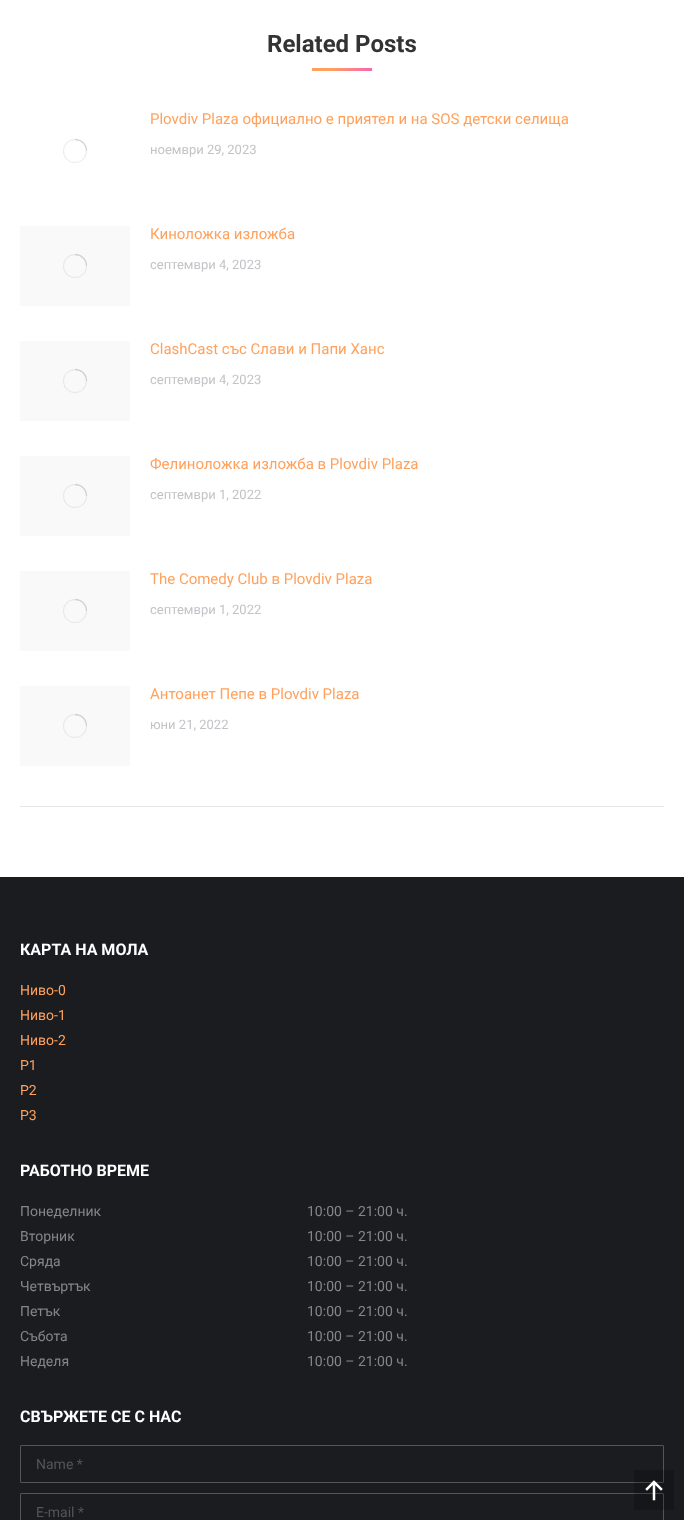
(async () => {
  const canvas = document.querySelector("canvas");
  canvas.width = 684;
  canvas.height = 1520;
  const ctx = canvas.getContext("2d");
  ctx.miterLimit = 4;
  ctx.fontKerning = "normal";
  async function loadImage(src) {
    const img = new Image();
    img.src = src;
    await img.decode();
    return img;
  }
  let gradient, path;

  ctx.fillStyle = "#ffffff";
  ctx.fillRect(0, 0, 684, 1520);
  ctx.fillStyle = "#e7e7e7";
  ctx.fillRect(20, 806, 644, 1);
  gradient = ctx.createLinearGradient(326, 54, 358, 85);
  gradient.addColorStop(0.3, "#ffa15c");
  gradient.addColorStop(1, "#f964b1");
  ctx.fillStyle = gradient;
  ctx.fillRect(312, 68, 60, 3);
  ctx.save();
  ctx.beginPath();
  ctx.rect(63, 139, 24, 24);
  ctx.clip();
  ctx.beginPath();
  ctx.arc(75, 151, 11.5, 0, Math.PI * 2);
  ctx.strokeStyle = "#eeeeef";
  ctx.lineWidth = 1.3;
  ctx.stroke();
  ctx.restore();
  path = new Path2D("M86.5 151C86.5 144.5 81.5 139.5 75 139.5");
  ctx.strokeStyle = "rgba(133, 134, 140, 0.25)";
  ctx.lineWidth = 1.3;
  ctx.stroke(path);
  ctx.fillStyle = "#f9f9f9";
  ctx.fillRect(20, 226, 110, 80);
  ctx.save();
  ctx.beginPath();
  ctx.rect(63, 254, 24, 24);
  ctx.clip();
  ctx.beginPath();
  ctx.arc(75, 266, 11.5, 0, Math.PI * 2);
  ctx.strokeStyle = "#e9e9ea";
  ctx.stroke();
  ctx.restore();
  path = new Path2D("M86.5 266C86.5 259.5 81.5 254.5 75 254.5");
  ctx.stroke(path);
  ctx.fillRect(20, 341, 110, 80);
  ctx.save();
  ctx.beginPath();
  ctx.rect(63, 369, 24, 24);
  ctx.clip();
  ctx.beginPath();
  ctx.arc(75, 381, 11.5, 0, Math.PI * 2);
  ctx.strokeStyle = "#e9e9ea";
  ctx.stroke();
  ctx.restore();
  path = new Path2D("M86.5 381C86.5 374.5 81.5 369.5 75 369.5");
  ctx.stroke(path);
  ctx.fillRect(20, 456, 110, 80);
  ctx.save();
  ctx.beginPath();
  ctx.rect(63, 484, 24, 24);
  ctx.clip();
  ctx.beginPath();
  ctx.arc(75, 496, 11.5, 0, Math.PI * 2);
  ctx.strokeStyle = "#e9e9ea";
  ctx.stroke();
  ctx.restore();
  path = new Path2D("M86.5 496C86.5 489.5 81.5 484.5 75 484.5");
  ctx.stroke(path);
  ctx.fillRect(20, 571, 110, 80);
  ctx.save();
  ctx.beginPath();
  ctx.rect(63, 599, 24, 24);
  ctx.clip();
  ctx.beginPath();
  ctx.arc(75, 611, 11.5, 0, Math.PI * 2);
  ctx.strokeStyle = "#e9e9ea";
  ctx.stroke();
  ctx.restore();
  path = new Path2D("M86.5 611C86.5 604.5 81.5 599.5 75 599.5");
  ctx.stroke(path);
  ctx.fillRect(20, 686, 110, 80);
  ctx.save();
  ctx.beginPath();
  ctx.rect(63, 714, 24, 24);
  ctx.clip();
  ctx.beginPath();
  ctx.arc(75, 726, 11.5, 0, Math.PI * 2);
  ctx.strokeStyle = "#e9e9ea";
  ctx.stroke();
  ctx.restore();
  path = new Path2D("M86.5 726C86.5 719.5 81.5 714.5 75 714.5");
  ctx.stroke(path);
  ctx.fillStyle = "#1a1c20";
  ctx.fillRect(0, 877, 684, 643);
  ctx.beginPath();
  ctx.roundRect(20.5, 1445.5, 643, 37, 0.5);
  ctx.strokeStyle = "#555555";
  ctx.lineWidth = 1;
  ctx.stroke();
  ctx.beginPath();
  ctx.roundRect(20.5, 1493.5, 643, 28, 0.5);
  ctx.stroke();
  ctx.fillStyle = "rgba(0, 0, 0, 0.2)";
  ctx.fillRect(634, 1470, 40, 40);
  ctx.drawImage(await loadImage("img/1.png"), 645, 1480, 18, 21);
  ctx.font = "bold 24px Roboto";
  ctx.fillStyle = "#333333";
  ctx.fillText("Related Posts", 267, 52);
  ctx.font = "15px Roboto";
  ctx.fillStyle = "#ffa15c";
  ctx.fillText("Plovdiv Plaza официално е приятел и на SOS детски селища", 150, 124);
  ctx.font = "13px Roboto";
  ctx.fillStyle = "#c2c3c6";
  ctx.fillText("ноември 29, 2023", 150, 154);
  ctx.font = "15px Roboto";
  ctx.fillStyle = "#ffa15c";
  ctx.fillText("Киноложка изложба", 150, 239);
  ctx.font = "13px Roboto";
  ctx.fillStyle = "#c2c3c6";
  ctx.fillText("септември 4, 2023", 150, 269);
  ctx.font = "15px Roboto";
  ctx.fillStyle = "#ffa15c";
  ctx.fillText("ClashCast със Слави и Папи Ханс", 150, 354);
  ctx.font = "13px Roboto";
  ctx.fillStyle = "#c2c3c6";
  ctx.fillText("септември 4, 2023", 150, 384);
  ctx.font = "15px Roboto";
  ctx.fillStyle = "#ffa15c";
  ctx.fillText("Фелиноложка изложба в Plovdiv Plaza", 150, 469);
  ctx.font = "13px Roboto";
  ctx.fillStyle = "#c2c3c6";
  ctx.fillText("септември 1, 2022", 150, 499);
  ctx.font = "15px Roboto";
  ctx.fillStyle = "#ffa15c";
  ctx.fillText("The Comedy Club в Plovdiv Plaza", 150, 584);
  ctx.font = "13px Roboto";
  ctx.fillStyle = "#c2c3c6";
  ctx.fillText("септември 1, 2022", 150, 614);
  ctx.font = "15px Roboto";
  ctx.fillStyle = "#ffa15c";
  ctx.fillText("Антоанет Пепе в Plovdiv Plaza", 150, 699);
  ctx.font = "13px Roboto";
  ctx.fillStyle = "#c2c3c6";
  ctx.fillText("юни 21, 2022", 150, 729);
  ctx.font = "bold 16px Roboto";
  ctx.fillStyle = "#ffffff";
  ctx.fillText("КАРТА НА МОЛА", 20, 955);
  ctx.font = "14px Roboto";
  ctx.fillStyle = "#ffa15c";
  for (const [text, x, y] of [
    ["Ниво-0", 20, 995],
    ["Ниво-1", 20, 1020],
    ["Ниво-2", 20, 1045],
    ["P1", 20, 1070],
    ["P2", 20, 1095],
    ["P3", 20, 1120],
  ]) {
    ctx.fillText(text, x, y);
  }
  ctx.font = "bold 16px Roboto";
  ctx.fillStyle = "#ffffff";
  ctx.fillText("РАБОТНО ВРЕМЕ", 20, 1176);
  ctx.font = "14px Roboto";
  ctx.fillStyle = "#85868c";
  for (const [text, x, y] of [
    ["Понеделник", 20, 1216],
    ["10:00 – 21:00 ч.", 307, 1216],
    ["Вторник", 20, 1241],
    ["10:00 – 21:00 ч.", 307, 1241],
    ["Сряда", 20, 1266],
    ["10:00 – 21:00 ч.", 307, 1266],
    ["Четвъртък", 20, 1291],
    ["10:00 – 21:00 ч.", 307, 1291],
    ["Петък", 20, 1316],
    ["10:00 – 21:00 ч.", 307, 1316],
    ["Събота", 20, 1341],
    ["10:00 – 21:00 ч.", 307, 1341],
    ["Неделя", 20, 1366],
    ["10:00 – 21:00 ч.", 307, 1366],
  ]) {
    ctx.fillText(text, x, y);
  }
  ctx.font = "bold 16px Roboto";
  ctx.fillStyle = "#ffffff";
  ctx.fillText("СВЪРЖЕТЕ СЕ С НАС", 20, 1422);
  ctx.font = "14px Roboto";
  ctx.fillStyle = "#53555a";
  ctx.fillText("Name *", 36, 1469);
  ctx.fillText("E-mail *", 36, 1517);
})();
